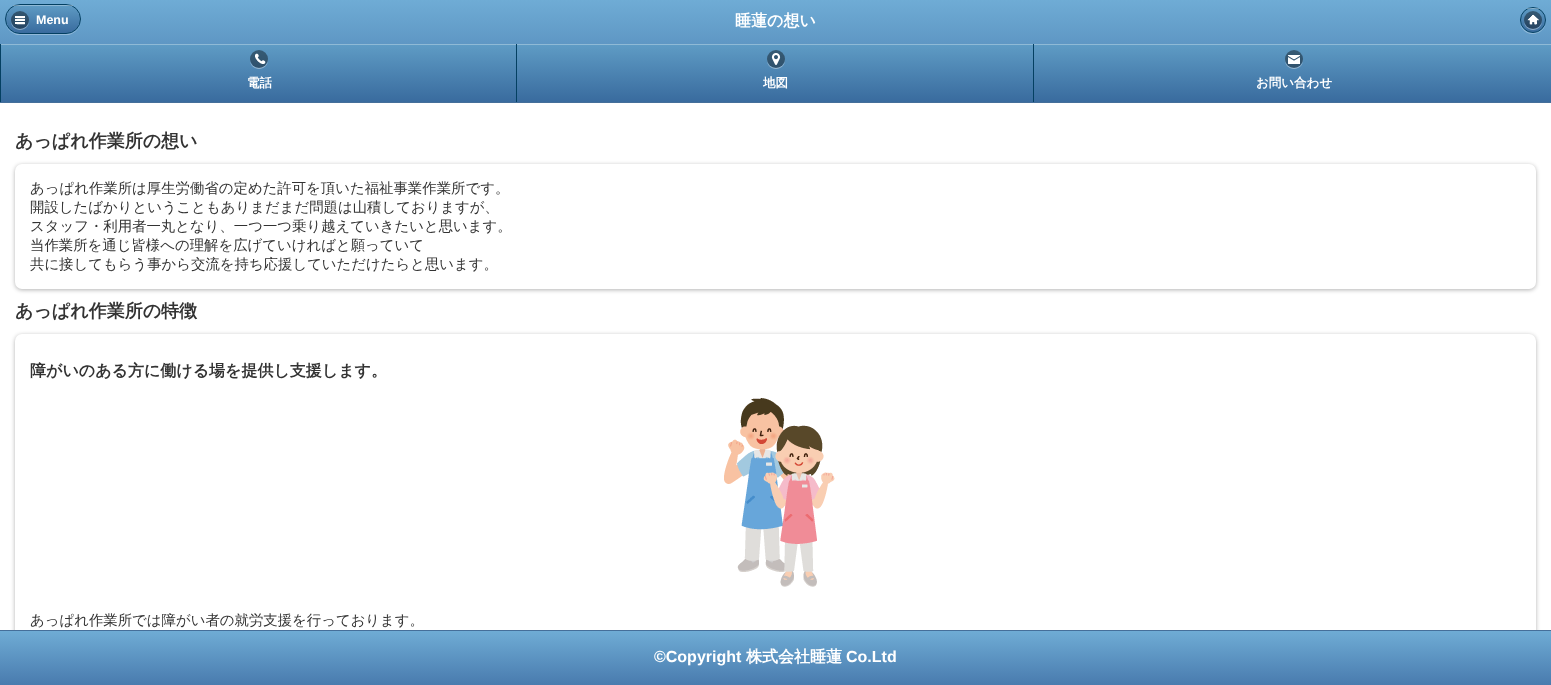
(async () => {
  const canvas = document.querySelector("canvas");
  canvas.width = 1551;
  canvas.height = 685;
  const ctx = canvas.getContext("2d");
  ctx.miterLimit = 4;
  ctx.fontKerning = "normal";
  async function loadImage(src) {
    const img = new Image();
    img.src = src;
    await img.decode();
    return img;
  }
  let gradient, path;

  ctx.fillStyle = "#ffffff";
  ctx.fillRect(0, 0, 1551, 685);
  gradient = ctx.createLinearGradient(776, 0, 776, 102);
  gradient.addColorStop(0, "#6facd5");
  gradient.addColorStop(1, "#497bae");
  ctx.fillStyle = gradient;
  ctx.fillRect(0, 0, 1551, 44);
  ctx.fillStyle = "#456f9a";
  ctx.fillRect(0, 102, 1551, 1);
  ctx.fillStyle = "#91b9d9";
  path = new Path2D("M5 20C5 27 10 33 17 35H69C76 33 81 27 81 19C81 28 74 34 66 34H20C12 34 5 28 5 20Z");
  ctx.fill(path);
  gradient = ctx.createLinearGradient(43, 5, 43, 33);
  gradient.addColorStop(0, "#5f9cc5");
  gradient.addColorStop(1, "#396b9e");
  ctx.fillStyle = gradient;
  ctx.beginPath();
  ctx.roundRect(6, 5, 74, 28, 14);
  ctx.fill();
  ctx.beginPath();
  ctx.roundRect(5.5, 4.5, 75, 29, 14.5);
  ctx.strokeStyle = "#044062";
  ctx.stroke();
  ctx.fillStyle = "rgba(255, 255, 255, 0.3)";
  ctx.fillRect(13, 5, 60, 1);
  ctx.fillStyle = "rgba(255, 255, 255, 0.4)";
  path = new Path2D("M11 20.5C10.5 33 29.5 33 29 20.5C28.5 31.5 11.5 31.5 11 20.5Z");
  ctx.fill(path);
  ctx.fillStyle = "rgba(0, 0, 0, 0.4)";
  ctx.beginPath();
  ctx.arc(20, 20, 9, 0, Math.PI * 2);
  ctx.fill();
  ctx.drawImage(await loadImage("img/1.png"), 15, 16, 10, 9);
  ctx.fillStyle = "rgba(255, 255, 255, 0.3)";
  path = new Path2D("M1520 20.5C1520 23 1520.5 26 1522 28.5C1529.5 39 1546.5 33.5 1546 20.5C1545.5 37 1520.5 37 1520 20.5Z");
  ctx.fill(path);
  gradient = ctx.createLinearGradient(1533, 8, 1533, 32);
  gradient.addColorStop(0, "#5f9cc5");
  gradient.addColorStop(1, "#396b9e");
  ctx.fillStyle = gradient;
  ctx.beginPath();
  ctx.arc(1533, 20, 12, 0, Math.PI * 2);
  ctx.fill();
  ctx.beginPath();
  ctx.arc(1533, 20, 12.5, 0, Math.PI * 2);
  ctx.stroke();
  ctx.fillStyle = "rgba(255, 255, 255, 0.3)";
  ctx.fillRect(1527, 8, 12, 1);
  ctx.fillStyle = "rgba(255, 255, 255, 0.4)";
  path = new Path2D("M1542 20.5C1541.5 31.5 1524.5 31.5 1524 20.5C1523.5 33 1542.5 33 1542 20.5Z");
  ctx.fill(path);
  ctx.fillStyle = "rgba(0, 0, 0, 0.4)";
  ctx.beginPath();
  ctx.arc(1533, 20, 9, 0, Math.PI * 2);
  ctx.fill();
  ctx.drawImage(await loadImage("img/2.png"), 1527, 14, 12, 11);
  gradient = ctx.createLinearGradient(260, 44, 260, 102);
  gradient.addColorStop(0, "#5f9cc5");
  gradient.addColorStop(1, "#396b9e");
  ctx.fillStyle = gradient;
  ctx.fillRect(1, 45, 515, 57);
  ctx.fillStyle = "#044062";
  ctx.fillRect(0, 44, 1, 58);
  ctx.fillStyle = "#8fbad6";
  ctx.fillRect(1, 44, 1550, 1);
  ctx.fillStyle = "rgba(255, 255, 255, 0.4)";
  path = new Path2D("M250 59.5C249.5 72 268.5 72 268 59.5C267.5 70.5 250.5 70.5 250 59.5Z");
  ctx.fill(path);
  ctx.fillStyle = "rgba(0, 0, 0, 0.4)";
  ctx.beginPath();
  ctx.arc(259, 59, 9, 0, Math.PI * 2);
  ctx.fill();
  ctx.drawImage(await loadImage("img/3.png"), 255, 53, 11, 11);
  gradient = ctx.createLinearGradient(776, 44, 776, 102);
  gradient.addColorStop(0, "#5f9cc5");
  gradient.addColorStop(1, "#396b9e");
  ctx.fillStyle = gradient;
  ctx.fillRect(517, 45, 516, 57);
  ctx.fillStyle = "#044062";
  ctx.fillRect(516, 44, 1, 58);
  ctx.fillStyle = "rgba(255, 255, 255, 0.4)";
  path = new Path2D("M785 59.5C784.5 70.5 767.5 70.5 767 59.5C766.5 72 785.5 72 785 59.5Z");
  ctx.fill(path);
  ctx.fillStyle = "rgba(0, 0, 0, 0.4)";
  ctx.beginPath();
  ctx.arc(776, 59, 9, 0, Math.PI * 2);
  ctx.fill();
  ctx.drawImage(await loadImage("img/4.png"), 771, 53, 10, 12);
  gradient = ctx.createLinearGradient(1295, 44, 1295, 102);
  gradient.addColorStop(0, "#5f9cc5");
  gradient.addColorStop(1, "#396b9e");
  ctx.fillStyle = gradient;
  ctx.fillRect(1034, 45, 517, 57);
  ctx.fillStyle = "#044062";
  ctx.fillRect(1033, 44, 1, 58);
  ctx.fillStyle = "rgba(255, 255, 255, 0.4)";
  path = new Path2D("M1303 59.5C1302.5 70.5 1285.5 70.5 1285 59.5C1284.5 72 1303.5 72 1303 59.5Z");
  ctx.fill(path);
  ctx.fillStyle = "rgba(0, 0, 0, 0.4)";
  ctx.beginPath();
  ctx.arc(1294, 59, 9, 0, Math.PI * 2);
  ctx.fill();
  ctx.drawImage(await loadImage("img/5.png"), 1288, 55, 12, 9);
  ctx.fillStyle = "rgba(0, 0, 0, 0.3)";
  ctx.filter = "blur(2px)";
  ctx.beginPath();
  ctx.roundRect(15, 165, 1521, 125, 7);
  ctx.fill();
  ctx.filter = "none";
  ctx.fillStyle = "#ffffff";
  ctx.beginPath();
  ctx.roundRect(15, 164, 1521, 125, 7);
  ctx.fill();
  ctx.fillStyle = "rgba(0, 0, 0, 0.3)";
  ctx.filter = "blur(2px)";
  ctx.beginPath();
  ctx.roundRect(15, 335, 1521, 347, 7);
  ctx.fill();
  ctx.filter = "none";
  ctx.fillStyle = "#ffffff";
  ctx.beginPath();
  ctx.roundRect(15, 334, 1521, 347, 7);
  ctx.fill();
  ctx.drawImage(await loadImage("img/6.png"), 724, 398, 111, 189);
  gradient = ctx.createLinearGradient(776, 631, 776, 685);
  gradient.addColorStop(0, "#6facd5");
  gradient.addColorStop(1, "#497bae");
  ctx.fillStyle = gradient;
  ctx.fillRect(0, 631, 1551, 54);
  ctx.fillStyle = "#456f9a";
  ctx.fillRect(0, 630, 1551, 1);
  ctx.font = "bold 12.5px Liberation Sans";
  ctx.fillStyle = "#ffffff";
  ctx.fillText("Menu", 36, 24);
  ctx.font = "bold 16px WenQuanYi Zen Hei";
  ctx.fillText("睡蓮の想い", 735, 26);
  ctx.font = "bold 12.5px WenQuanYi Zen Hei";
  for (const [text, x, y] of [
    ["電話", 247, 87],
    ["地図", 763, 87],
    ["お問い合わせ", 1256, 87],
  ]) {
    ctx.fillText(text, x, y);
  }
  ctx.font = "bold 18px WenQuanYi Zen Hei";
  ctx.fillStyle = "#333333";
  ctx.fillText("あっぱれ作業所の想い", 15, 147);
  ctx.font = "500 14.4px WenQuanYi Zen Hei";
  for (const [text, x, y] of [
    ["あっぱれ作業所は厚生労働省の定めた許可を頂いた福祉事業作業所です。", 30, 193],
    ["開設したばかりということもありまだまだ問題は山積しておりますが、", 30, 212],
    ["スタッフ・利用者一丸となり、一つ一つ乗り越えていきたいと思います。", 30, 231],
    ["当作業所を通じ皆様への理解を広げていければと願っていて", 30, 250],
    ["共に接してもらう事から交流を持ち応援していただけたらと思います。", 30, 269],
  ]) {
    ctx.fillText(text, x, y);
  }
  ctx.font = "bold 18px WenQuanYi Zen Hei";
  ctx.fillText("あっぱれ作業所の特徴", 15, 317);
  ctx.font = "bold 16px WenQuanYi Zen Hei";
  ctx.fillText("障がいのある方に働ける場を提供し支援します。", 30, 376);
  ctx.font = "500 14.4px WenQuanYi Zen Hei";
  ctx.fillText("あっぱれ作業所では障がい者の就労支援を行っております。", 30, 625);
  ctx.font = "bold 16px Liberation Sans";
  ctx.fillStyle = "#ffffff";
  ctx.fillText("©Copyright", 654, 662);
  ctx.font = "bold 16px WenQuanYi Zen Hei";
  ctx.fillText("株式会社睡蓮", 746, 662);
  ctx.font = "bold 16px Liberation Sans";
  ctx.fillText("Co.Ltd", 846, 662);
})();
